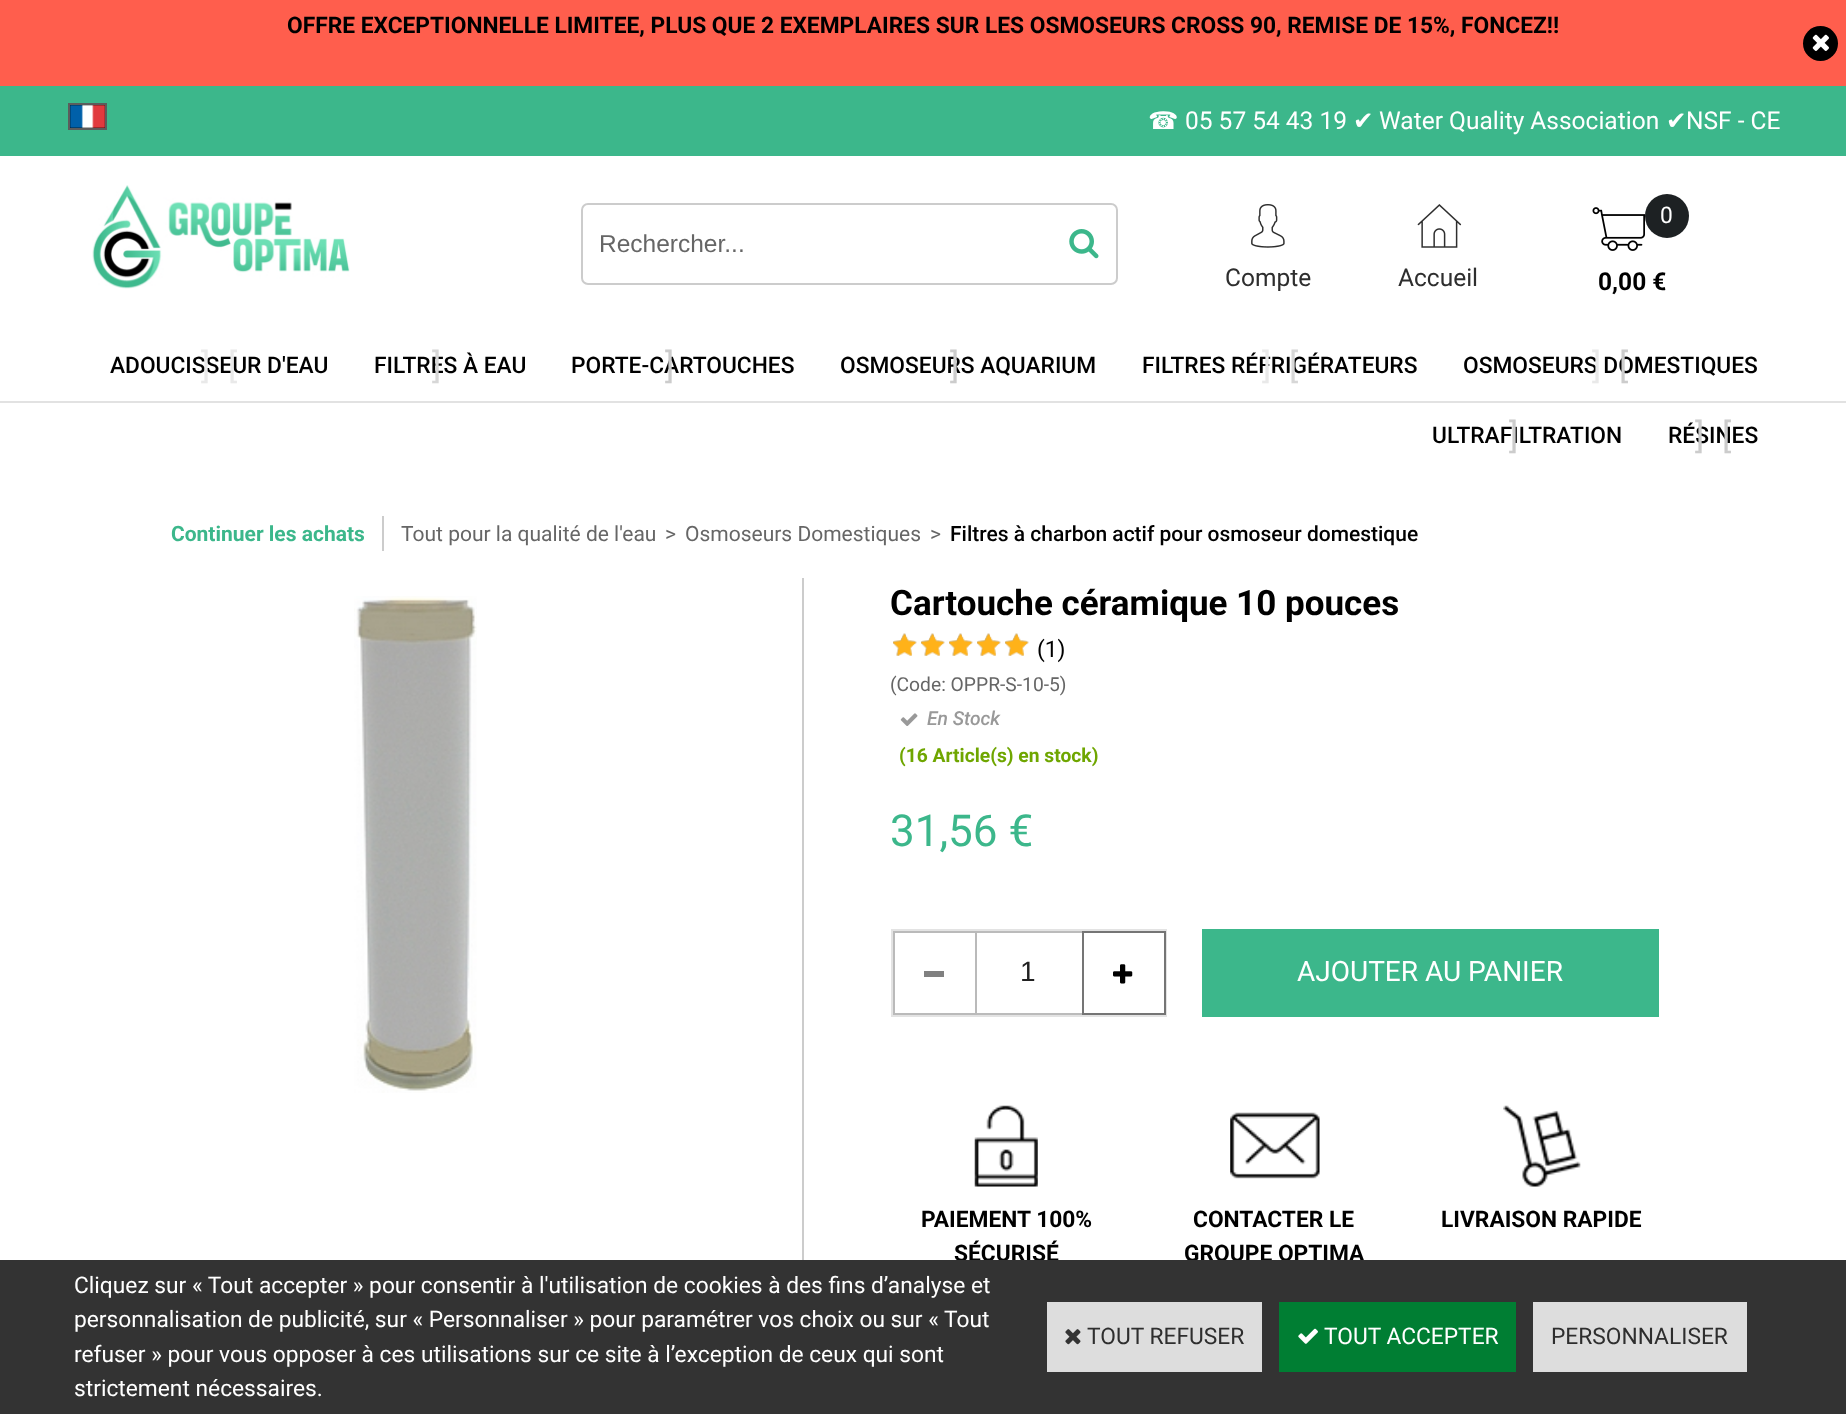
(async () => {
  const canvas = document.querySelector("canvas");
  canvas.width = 1846;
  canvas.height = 1414;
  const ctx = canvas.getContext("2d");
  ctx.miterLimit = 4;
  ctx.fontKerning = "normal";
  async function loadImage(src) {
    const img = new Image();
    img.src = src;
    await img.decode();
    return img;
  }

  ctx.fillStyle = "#ffffff";
  ctx.fillRect(0, 0, 1846, 1414);
  ctx.fillStyle = "#ff5e4d";
  ctx.fillRect(0, 0, 1846, 86);
  ctx.fillStyle = "#000000";
  ctx.beginPath();
  ctx.arc(1820.5, 43.5, 17.5, 0, Math.PI * 2);
  ctx.fill();
  ctx.drawImage(await loadImage("img/1.png"), 1812, 34, 17, 17);
  ctx.fillStyle = "#3cb78b";
  ctx.fillRect(0, 86, 1846, 70);
  ctx.fillStyle = "#e2e2e2";
  ctx.fillRect(0, 401, 1846, 2);
  ctx.drawImage(await loadImage("img/2.png"), 70, 105, 35, 23);
  ctx.strokeStyle = "#5c5c5c";
  ctx.lineWidth = 2;
  ctx.strokeRect(69, 104, 37, 25);
  ctx.drawImage(await loadImage("img/3.png"), 92, 185, 258, 104);
  ctx.beginPath();
  ctx.roundRect(582, 204, 535, 80, 6);
  ctx.strokeStyle = "#cccccc";
  ctx.stroke();
  ctx.drawImage(await loadImage("img/4.png"), 1069, 229, 30, 30);
  ctx.drawImage(await loadImage("img/5.png"), 1251, 204, 34, 44);
  ctx.drawImage(await loadImage("img/6.png"), 1417, 204, 45, 44);
  ctx.drawImage(await loadImage("img/7.png"), 1592, 207, 53, 44);
  ctx.fillStyle = "#1d2123";
  ctx.beginPath();
  ctx.arc(1667, 216, 22, 0, Math.PI * 2);
  ctx.fill();
  ctx.fillStyle = "#cccccc";
  ctx.fillRect(382, 516, 2, 35);
  ctx.drawImage(await loadImage("img/8.png"), 354, 596, 123, 497);
  ctx.fillRect(802, 578, 2, 682);
  ctx.drawImage(await loadImage("img/9.png"), 893, 633, 136, 23);
  ctx.drawImage(await loadImage("img/10.png"), 893, 633, 136, 23);
  ctx.drawImage(await loadImage("img/11.png"), 900, 713, 18, 13);
  ctx.strokeStyle = "#e3e3e3";
  ctx.strokeRect(892, 930, 274, 86);
  ctx.strokeStyle = "#bababa";
  ctx.strokeRect(894, 932, 82, 82);
  for (const [x, y, w, h, color] of [
    [924, 971, 20, 6, "#808080"],
    [977, 931, 105, 2, "#bbbbbb"],
    [977, 1013, 105, 2, "#bbbbbb"],
  ]) {
    ctx.fillStyle = color;
    ctx.fillRect(x, y, w, h);
  }
  ctx.strokeStyle = "#757575";
  ctx.strokeRect(1083, 932, 82, 82);
  ctx.drawImage(await loadImage("img/12.png"), 1113, 964, 20, 20);
  ctx.fillStyle = "#3cb78b";
  ctx.fillRect(1202, 929, 457, 88);
  ctx.drawImage(await loadImage("img/13.png"), 974, 1105, 64, 82);
  ctx.drawImage(await loadImage("img/14.png"), 1230, 1112, 90, 67);
  ctx.drawImage(await loadImage("img/15.png"), 1503, 1105, 78, 82);
  ctx.font = "bold 22.75px Roboto";
  ctx.fillStyle = "#000000";
  ctx.fillText("OFFRE EXCEPTIONNELLE LIMITEE, PLUS QUE 2 EXEMPLAIRES SUR LES OSMOSEURS CROSS 90, REMISE DE 15%, FONCEZ!!", 287, 33);
  ctx.font = "24.5px DejaVu Sans";
  ctx.fillStyle = "#ffffff";
  ctx.fillText("☎", 1148, 129);
  ctx.font = "24.5px Roboto";
  ctx.fillText("05 57 54 43 19", 1185, 129);
  ctx.font = "24.5px DejaVu Sans";
  ctx.fillText("✔", 1353, 129);
  ctx.font = "24.5px Roboto";
  ctx.fillText("Water Quality Association", 1379, 129);
  ctx.font = "24.5px DejaVu Sans";
  ctx.fillText("✔", 1666, 129);
  ctx.font = "24.5px Roboto";
  ctx.fillText("NSF - CE", 1686, 129);
  ctx.font = "24.5px Liberation Sans";
  ctx.fillStyle = "#666666";
  ctx.fillText("Rechercher...", 599, 252);
  ctx.font = "24.5px Roboto";
  ctx.fillStyle = "#2e2e2e";
  ctx.fillText("Compte", 1225, 286);
  ctx.fillText("Accueil", 1398, 286);
  ctx.font = "22.75px Roboto";
  ctx.fillStyle = "#ffffff";
  ctx.fillText("0", 1660, 223);
  ctx.font = "bold 24.5px Roboto";
  ctx.fillStyle = "#000000";
  ctx.fillText("0,00 €", 1598, 290);
  ctx.font = "500 22.75px Roboto";
  ctx.fillText("ADOUCISSEUR D'EAU", 110, 373);
  ctx.font = "35px Roboto";
  ctx.fillStyle = "#e9e9e9";
  ctx.fillText("]", 201, 378);
  ctx.fillText("[", 228, 378);
  ctx.font = "500 22.75px Roboto";
  ctx.fillStyle = "#000000";
  ctx.fillText("FILTRES À EAU", 374, 373);
  ctx.font = "35px Roboto";
  ctx.fillStyle = "#d7d7d7";
  ctx.fillText("]", 432, 378);
  ctx.font = "500 22.75px Roboto";
  ctx.fillStyle = "#000000";
  ctx.fillText("PORTE-CARTOUCHES", 571, 373);
  ctx.font = "35px Roboto";
  ctx.fillStyle = "#cccccc";
  ctx.fillText("]", 665, 378);
  ctx.font = "500 22.75px Roboto";
  ctx.fillStyle = "#000000";
  ctx.fillText("OSMOSEURS AQUARIUM", 840, 373);
  ctx.font = "35px Roboto";
  ctx.fillStyle = "#cccccc";
  ctx.fillText("]", 950, 378);
  ctx.font = "500 22.75px Roboto";
  ctx.fillStyle = "#000000";
  ctx.fillText("FILTRES RÉFRIGÉRATEURS", 1142, 373);
  ctx.font = "35px Roboto";
  ctx.fillStyle = "#e9e9e9";
  ctx.fillText("]", 1262, 378);
  ctx.fillStyle = "#d7d7d7";
  ctx.fillText("[", 1289, 378);
  ctx.font = "500 22.75px Roboto";
  ctx.fillStyle = "#000000";
  ctx.fillText("OSMOSEURS DOMESTIQUES", 1463, 373);
  ctx.font = "35px Roboto";
  ctx.fillStyle = "#e9e9e9";
  ctx.fillText("]", 1592, 378);
  ctx.fillStyle = "#cccccc";
  ctx.fillText("[", 1619, 378);
  ctx.font = "500 22.75px Roboto";
  ctx.fillStyle = "#000000";
  ctx.fillText("ULTRAFILTRATION", 1432, 443);
  ctx.font = "35px Roboto";
  ctx.fillStyle = "#cccccc";
  ctx.fillText("]", 1509, 448);
  ctx.font = "500 22.75px Roboto";
  ctx.fillStyle = "#000000";
  ctx.fillText("RÉSINES", 1668, 443);
  ctx.font = "35px Roboto";
  ctx.fillStyle = "#cccccc";
  ctx.fillText("]", 1695, 448);
  ctx.fillText("[", 1722, 448);
  ctx.font = "bold 21px Roboto";
  ctx.fillStyle = "#3cb78b";
  ctx.fillText("Continuer les achats", 171, 541);
  ctx.font = "21px Roboto";
  ctx.fillStyle = "#666666";
  for (const [text, x, y] of [
    ["Tout pour la qualité de l'eau", 401, 541],
    [">", 665, 541],
    ["Osmoseurs Domestiques", 685, 541],
    [">", 930, 541],
  ]) {
    ctx.fillText(text, x, y);
  }
  ctx.font = "500 21px Roboto";
  ctx.fillStyle = "#000000";
  ctx.fillText("Filtres à charbon actif pour osmoseur domestique", 950, 541);
  ctx.font = "bold 35px Roboto";
  ctx.fillText("Cartouche céramique 10 pouces", 890, 615);
  ctx.font = "22.75px Roboto";
  ctx.fillText("(1)", 1037, 657);
  ctx.font = "19.25px Roboto";
  ctx.fillStyle = "#666666";
  ctx.fillText("(Code: OPPR-S-10-5)", 890, 691);
  ctx.font = "italic 500 19.25px Roboto";
  ctx.fillStyle = "#999999";
  ctx.fillText("En Stock", 927, 725);
  ctx.font = "bold 19.25px Roboto";
  ctx.fillStyle = "#6fa600";
  ctx.fillText("(16 Article(s) en stock)", 899, 762);
  ctx.font = "44px Roboto";
  ctx.fillStyle = "#3cb78b";
  ctx.fillText("31,56 €", 890, 846);
  ctx.font = "28px Liberation Sans";
  ctx.fillStyle = "#212121";
  ctx.fillText("1", 1020, 981);
  ctx.font = "28px Roboto";
  ctx.fillStyle = "#ffffff";
  ctx.fillText("AJOUTER AU PANIER", 1297, 981);
  ctx.font = "bold 22.75px Roboto";
  ctx.fillStyle = "#000000";
  for (const [text, x, y] of [
    ["PAIEMENT 100%", 921, 1227],
    ["SÉCURISÉ", 954, 1261],
    ["CONTACTER LE", 1193, 1227],
    ["GROUPE OPTIMA", 1184, 1261],
    ["LIVRAISON RAPIDE", 1441, 1227],
  ]) {
    ctx.fillText(text, x, y);
  }
  ctx.fillStyle = "#333333";
  ctx.fillRect(0, 1260, 1846, 154);
  ctx.font = "22.75px Roboto";
  ctx.fillStyle = "#ffffff";
  for (const [text, x, y] of [
    ["Cliquez sur « Tout accepter » pour consentir à l'utilisation de cookies à des fins d’analyse et", 74, 1293],
    ["personnalisation de publicité, sur « Personnaliser » pour paramétrer vos choix ou sur « Tout", 74, 1327],
    ["refuser » pour vous opposer à ces utilisations sur ce site à l’exception de ceux qui sont", 74, 1362],
    ["strictement nécessaires.", 74, 1396],
  ]) {
    ctx.fillText(text, x, y);
  }
  ctx.fillStyle = "#dddddd";
  ctx.fillRect(1047, 1302, 215, 70);
  ctx.drawImage(await loadImage("img/16.png"), 1065, 1329, 16, 16);
  ctx.fillStyle = "#2e2e2e";
  ctx.fillText("TOUT REFUSER", 1087, 1344);
  ctx.fillStyle = "#007e33";
  ctx.fillRect(1279, 1302, 237, 70);
  ctx.drawImage(await loadImage("img/17.png"), 1298, 1328, 20, 16);
  ctx.fillStyle = "#ffffff";
  ctx.fillText("TOUT ACCEPTER", 1324, 1344);
  ctx.fillStyle = "#dddddd";
  ctx.fillRect(1533, 1302, 214, 70);
  ctx.fillStyle = "#2e2e2e";
  ctx.fillText("PERSONNALISER", 1551, 1344);
})();
